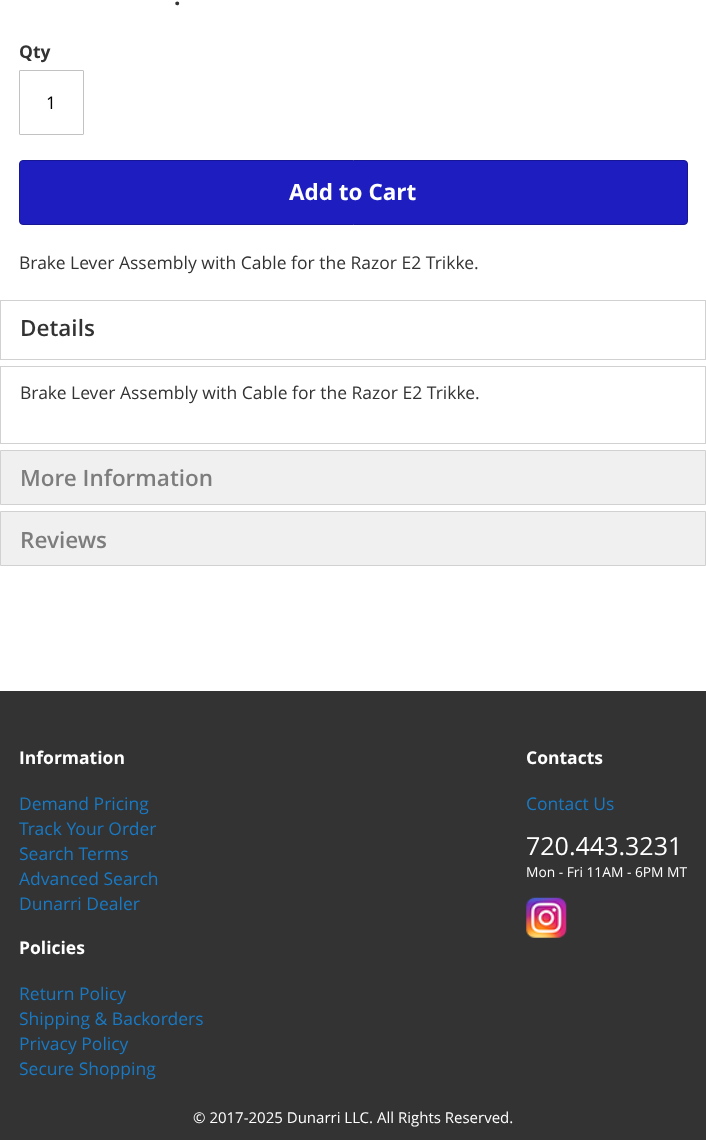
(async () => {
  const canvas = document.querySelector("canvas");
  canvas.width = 706;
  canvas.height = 1140;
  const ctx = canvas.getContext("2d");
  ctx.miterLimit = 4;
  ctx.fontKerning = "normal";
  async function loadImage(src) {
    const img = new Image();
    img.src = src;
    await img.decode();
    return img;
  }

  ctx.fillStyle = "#ffffff";
  ctx.fillRect(0, 0, 706, 1140);
  ctx.beginPath();
  ctx.roundRect(19.5, 70.5, 64, 64, 0.5);
  ctx.strokeStyle = "#c2c2c2";
  ctx.stroke();
  ctx.fillStyle = "#1e1ec0";
  ctx.beginPath();
  ctx.roundRect(19.5, 160.5, 668, 64, 3.5);
  ctx.fill();
  ctx.strokeStyle = "#171794";
  ctx.stroke();
  ctx.strokeStyle = "#d1d1d1";
  ctx.strokeRect(0.5, 300.5, 705, 59);
  ctx.strokeRect(0.5, 366.5, 705, 77);
  ctx.fillStyle = "#f0f0f0";
  ctx.beginPath();
  ctx.rect(0.5, 450.5, 705, 54);
  ctx.fill();
  ctx.stroke();
  ctx.beginPath();
  ctx.rect(0.5, 511.5, 705, 54);
  ctx.fill();
  ctx.stroke();
  ctx.fillStyle = "#333333";
  ctx.fillRect(0, 691, 706, 449);
  ctx.drawImage(await loadImage("img/1.png"), 526, 897, 41, 41);
  ctx.font = "bold 22.5px Open Sans";
  ctx.fillText(".", 174, 5);
  ctx.font = "bold 17.5px Open Sans";
  ctx.fillText("Qty", 19, 58);
  ctx.font = "17.5px Open Sans";
  ctx.fillStyle = "#000000";
  ctx.fillText("1", 46, 109);
  ctx.font = "bold 22.5px Open Sans";
  ctx.fillStyle = "#ffffff";
  ctx.fillText("Add to Cart", 289, 200);
  ctx.font = "17.5px Open Sans";
  ctx.fillStyle = "#333333";
  ctx.fillText("Brake Lever Assembly with Cable for the Razor E2 Trikke.", 19, 269);
  ctx.font = "600 22.5px Open Sans";
  ctx.fillText("Details", 20, 336);
  ctx.font = "17.5px Open Sans";
  ctx.fillText("Brake Lever Assembly with Cable for the Razor E2 Trikke.", 20, 399);
  ctx.font = "600 22.5px Open Sans";
  ctx.fillStyle = "#7d7d7d";
  ctx.fillText("More Information", 20, 486);
  ctx.fillText("Reviews", 20, 548);
  ctx.font = "bold 17.5px Open Sans";
  ctx.fillStyle = "#ffffff";
  ctx.fillText("Information", 19, 764);
  ctx.font = "17.5px Open Sans";
  ctx.fillStyle = "#1979c3";
  for (const [text, x, y] of [
    ["Demand Pricing", 19, 810],
    ["Track Your Order", 19, 835],
    ["Search Terms", 19, 860],
    ["Advanced Search", 19, 885],
    ["Dunarri Dealer", 19, 910],
  ]) {
    ctx.fillText(text, x, y);
  }
  ctx.font = "bold 17.5px Open Sans";
  ctx.fillStyle = "#ffffff";
  ctx.fillText("Contacts", 526, 764);
  ctx.font = "17.5px Open Sans";
  ctx.fillStyle = "#1979c3";
  ctx.fillText("Contact Us", 526, 810);
  ctx.font = "25px Open Sans";
  ctx.fillStyle = "#ffffff";
  ctx.fillText("720.443.3231", 526, 855);
  ctx.font = "13.75px Open Sans";
  ctx.fillText("Mon - Fri 11AM - 6PM MT", 526, 877);
  ctx.font = "bold 17.5px Open Sans";
  ctx.fillText("Policies", 19, 954);
  ctx.font = "17.5px Open Sans";
  ctx.fillStyle = "#1979c3";
  for (const [text, x, y] of [
    ["Return Policy", 19, 1000],
    ["Shipping & Backorders", 19, 1025],
    ["Privacy Policy", 19, 1050],
    ["Secure Shopping", 19, 1075],
  ]) {
    ctx.fillText(text, x, y);
  }
  ctx.font = "15px Open Sans";
  ctx.fillStyle = "#ffffff";
  ctx.fillText("© 2017-2025 Dunarri LLC. All Rights Reserved.", 193, 1123);
})();
